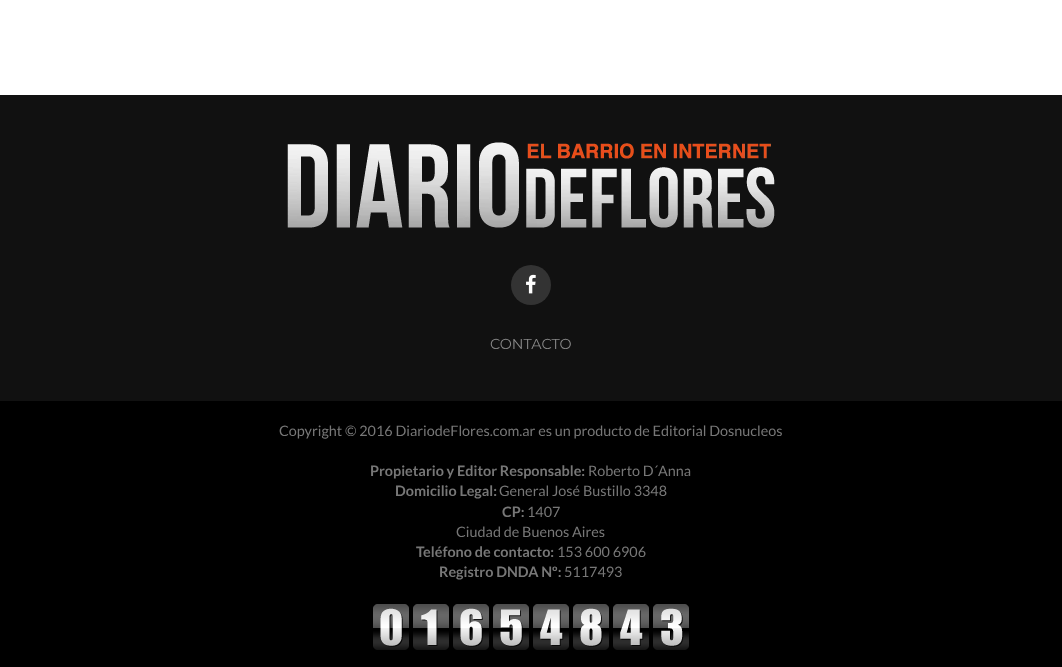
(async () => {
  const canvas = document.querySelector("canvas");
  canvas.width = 1062;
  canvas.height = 667;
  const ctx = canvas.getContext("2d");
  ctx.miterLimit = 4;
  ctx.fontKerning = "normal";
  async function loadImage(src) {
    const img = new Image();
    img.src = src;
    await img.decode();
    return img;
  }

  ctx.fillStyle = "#ffffff";
  ctx.fillRect(0, 0, 1062, 667);
  ctx.fillStyle = "#111111";
  ctx.fillRect(0, 95, 1062, 306);
  ctx.drawImage(await loadImage("img/1.png"), 287, 142, 488, 86);
  ctx.fillStyle = "#333333";
  ctx.beginPath();
  ctx.arc(531, 285, 20, 0, Math.PI * 2);
  ctx.fill();
  ctx.drawImage(await loadImage("img/2.png"), 526, 274, 10, 20);
  ctx.fillStyle = "#000000";
  ctx.fillRect(0, 401, 1062, 266);
  ctx.drawImage(await loadImage("img/3.png"), 373, 604, 316, 46);
  ctx.font = "14.4px Montserrat";
  ctx.fillStyle = "#888888";
  ctx.fillText("CONTACTO", 490, 349);
  ctx.font = "14.4px Lato";
  ctx.fillStyle = "#777777";
  ctx.fillText("Copyright © 2016 DiariodeFlores.com.ar es un producto de Editorial Dosnucleos", 279, 436);
  ctx.font = "bold 14.4px Lato";
  ctx.fillText("Propietario y Editor Responsable:", 370, 476);
  ctx.font = "14.4px Lato";
  ctx.fillText("Roberto D´Anna", 588, 476);
  ctx.font = "bold 14.4px Lato";
  ctx.fillText("Domicilio Legal:", 395, 496);
  ctx.font = "14.4px Lato";
  ctx.fillText("General José Bustillo 3348", 499, 496);
  ctx.font = "bold 14.4px Lato";
  ctx.fillText("CP:", 502, 517);
  ctx.font = "14.4px Lato";
  ctx.fillText("1407", 527, 517);
  ctx.fillText("Ciudad de Buenos Aires", 456, 537);
  ctx.font = "bold 14.4px Lato";
  ctx.fillText("Teléfono de contacto:", 416, 557);
  ctx.font = "14.4px Lato";
  ctx.fillText("153 600 6906", 557, 557);
  ctx.font = "bold 14.4px Lato";
  ctx.fillText("Registro DNDA Nº:", 439, 577);
  ctx.font = "14.4px Lato";
  ctx.fillText("5117493", 564, 577);
})();
